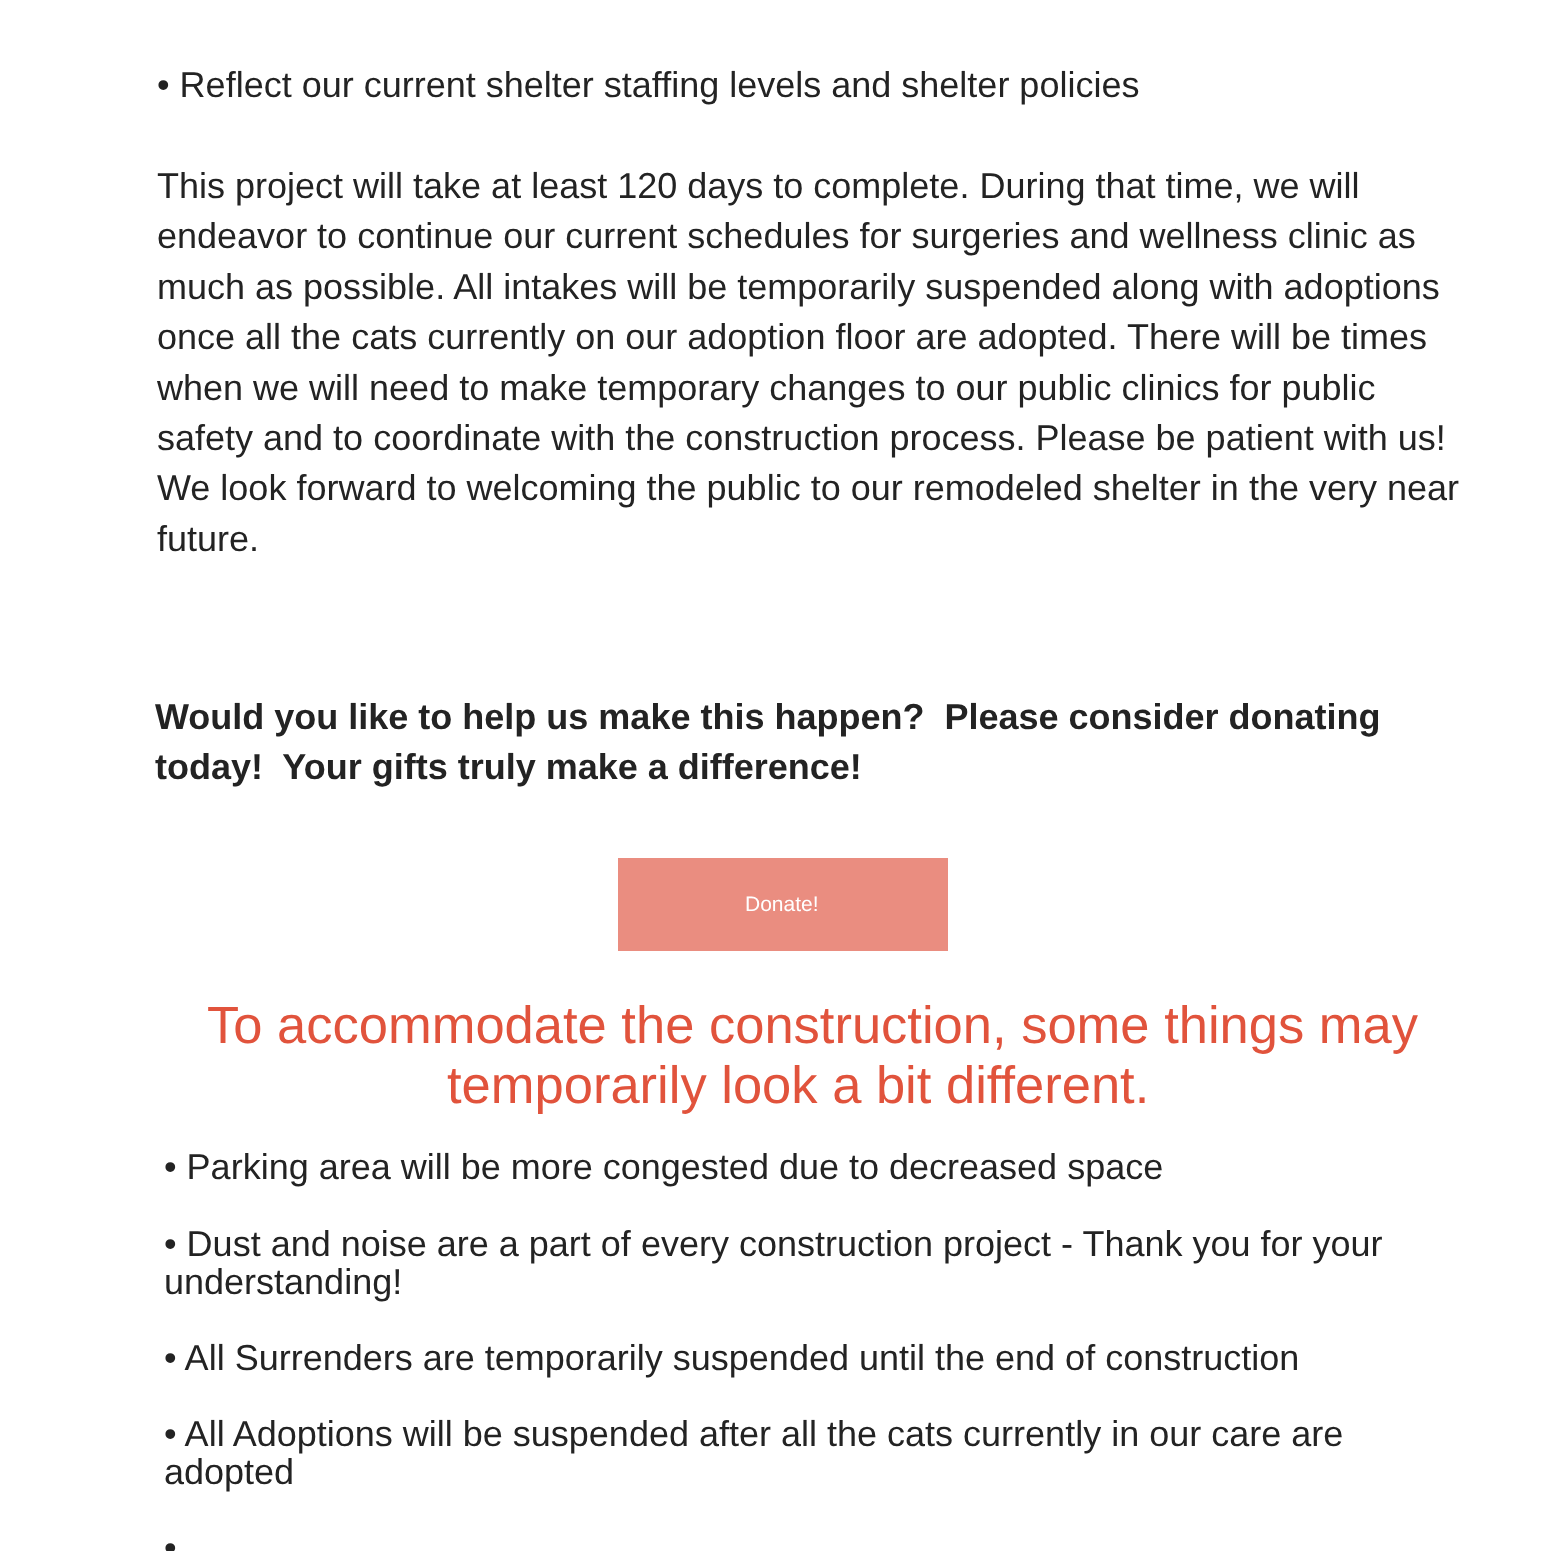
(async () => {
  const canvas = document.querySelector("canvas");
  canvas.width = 1564;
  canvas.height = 1551;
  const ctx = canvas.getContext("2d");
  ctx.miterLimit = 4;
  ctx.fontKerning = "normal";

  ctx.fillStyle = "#ffffff";
  ctx.fillRect(0, 0, 1564, 1551);
  ctx.fillStyle = "#ea8d80";
  ctx.fillRect(618, 858, 330, 93);
  ctx.font = "36px Liberation Sans";
  ctx.fillStyle = "#232323";
  for (const [text, x, y] of [
    ["• Reflect our current shelter staffing levels and shelter policies", 157, 97],
    ["This project will take at least 120 days to complete. During that time, we will", 157, 198],
    ["endeavor to continue our current schedules for surgeries and wellness clinic as", 157, 248],
    ["much as possible. All intakes will be temporarily suspended along with adoptions", 157, 299],
    ["once all the cats currently on our adoption floor are adopted. There will be times", 157, 349],
    ["when we will need to make temporary changes to our public clinics for public", 157, 400],
    ["safety and to coordinate with the construction process. Please be patient with us!", 157, 450],
    ["We look forward to welcoming the public to our remodeled shelter in the very near", 157, 500],
    ["future.", 157, 551],
  ]) {
    ctx.fillText(text, x, y);
  }
  ctx.font = "bold 36px Liberation Sans";
  ctx.fillText("Would you like to help us make this happen?  Please consider donating", 155, 729);
  ctx.fillText("today!  Your gifts truly make a difference!", 155, 779);
  ctx.font = "21px Liberation Sans";
  ctx.fillStyle = "#ffffff";
  ctx.fillText("Donate!", 745, 911);
  ctx.font = "52.5px Liberation Sans";
  ctx.fillStyle = "#e1533c";
  ctx.fillText("To accommodate the construction, some things may", 207, 1043);
  ctx.fillText("temporarily look a bit different.", 447, 1103);
  ctx.font = "36px Liberation Sans";
  ctx.fillStyle = "#232323";
  for (const [text, x, y] of [
    ["• Parking area will be more congested due to decreased space", 164, 1179],
    ["• Dust and noise are a part of every construction project - Thank you for your", 164, 1256],
    ["understanding!", 164, 1294],
    ["• All Surrenders are temporarily suspended until the end of construction", 164, 1370],
    ["• All Adoptions will be suspended after all the cats currently in our care are", 164, 1446],
    ["adopted", 164, 1484],
    ["•", 164, 1560],
  ]) {
    ctx.fillText(text, x, y);
  }
})();
